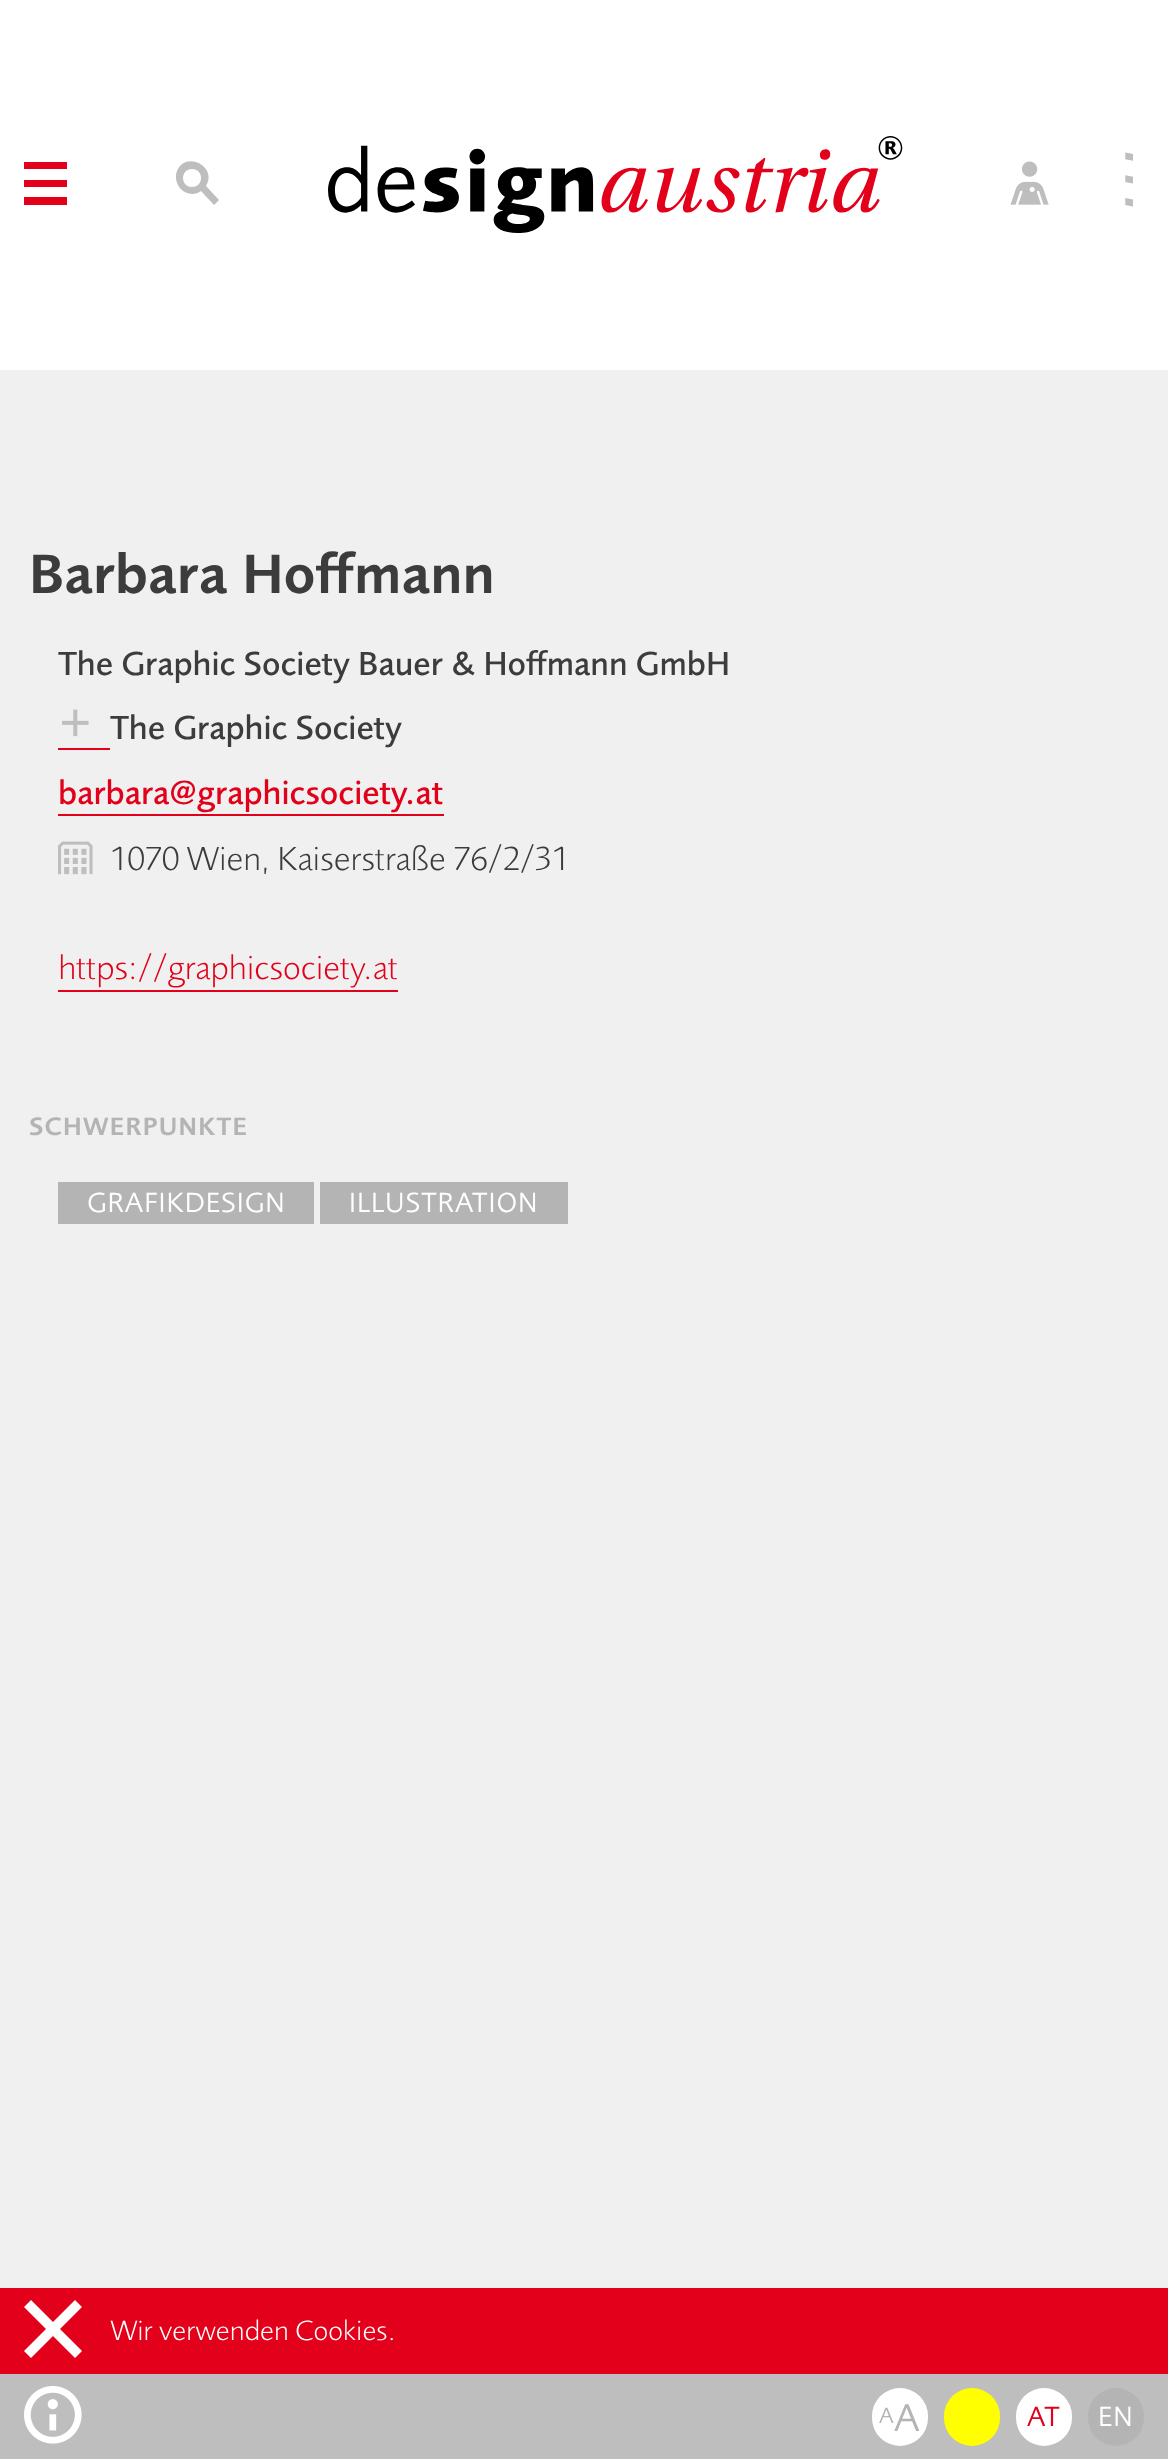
(async () => {
  const canvas = document.querySelector("canvas");
  canvas.width = 1168;
  canvas.height = 2459;
  const ctx = canvas.getContext("2d");
  ctx.miterLimit = 4;
  ctx.fontKerning = "normal";
  async function loadImage(src) {
    const img = new Image();
    img.src = src;
    await img.decode();
    return img;
  }
  let path;

  ctx.fillStyle = "#f0f0f0";
  ctx.fillRect(0, 0, 1168, 2459);
  ctx.fillStyle = "#ffffff";
  ctx.fillRect(0, 0, 1168, 370);
  ctx.fillStyle = "#e2001a";
  path = new Path2D("M24 162H67V169H24ZM24 180H67V187H24ZM24 197H67V205H24Z");
  ctx.fill(path);
  ctx.drawImage(await loadImage("img/1.png"), 1010, 161, 39, 44);
  ctx.fillStyle = "#bebebe";
  path = new Path2D("M219 200L206 186C218 167 186 150 177 171C175 176 176 181 178 185C182 193 193 197 201 191L214 205ZM192 187C180 187 180 169 192 169C204 169 204 187 192 187Z");
  ctx.fill(path);
  ctx.drawImage(await loadImage("img/2.png"), 328, 136, 575, 97);
  ctx.fillStyle = "#e2001a";
  ctx.fillRect(58, 748, 52, 2);
  ctx.drawImage(await loadImage("img/3.png"), 62, 709, 27, 28);
  ctx.fillRect(58, 814, 386, 2);
  ctx.drawImage(await loadImage("img/4.png"), 58, 841, 35, 34);
  for (const [x, y, w, h, color] of [
    [58, 990, 340, 2, "#e2001a"],
    [58, 1182, 256, 42, "#b4b4b4"],
    [320, 1182, 248, 42, "#b4b4b4"],
    [0, 2374, 1168, 85, "#bebebe"],
  ]) {
    ctx.fillStyle = color;
    ctx.fillRect(x, y, w, h);
  }
  ctx.drawImage(await loadImage("img/5.png"), 24, 2386, 58, 58);
  ctx.fillStyle = "#ffffff";
  ctx.beginPath();
  ctx.roundRect(872, 2388, 56, 58, 28);
  ctx.fill();
  ctx.fillStyle = "#ffff00";
  ctx.beginPath();
  ctx.roundRect(944, 2388, 56, 58, 28);
  ctx.fill();
  ctx.fillStyle = "#ffffff";
  ctx.beginPath();
  ctx.roundRect(1016, 2388, 56, 58, 28);
  ctx.fill();
  ctx.fillStyle = "#b4b4b4";
  ctx.beginPath();
  ctx.roundRect(1088, 2388, 56, 58, 28);
  ctx.fill();
  ctx.fillStyle = "#e2001a";
  ctx.fillRect(0, 2288, 1168, 86);
  ctx.fillStyle = "#ffffff";
  path = new Path2D("M82 2307L75 2300L53 2322L31 2300L24 2307L46 2329L24 2351L31 2358L53 2336L75 2358L82 2351L60 2329Z");
  ctx.fill(path);
  ctx.font = "italic 72px Liberation Sans";
  ctx.fillStyle = "#bebebe";
  ctx.save();
  ctx.translate(1133, 213);
  ctx.rotate(-90 * Math.PI / 180);
  ctx.fillText("…", 0, 0);
  ctx.restore();
  ctx.font = "600 57.5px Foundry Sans";
  ctx.fillStyle = "#3c3c3c";
  ctx.fillText("Barbara Hoffmann", 29, 593);
  ctx.font = "500 34.5px Foundry Sans";
  for (const [text, x, y] of [
    ["The Graphic Society Bauer", 58, 675],
    ["& Hoffmann GmbH", 452, 675],
    ["The Graphic Society", 110, 739],
  ]) {
    ctx.fillText(text, x, y);
  }
  ctx.fillStyle = "#e2001a";
  ctx.fillText("barbara@graphicsociety.at", 58, 804);
  ctx.font = "300 34.5px Foundry Sans";
  ctx.fillStyle = "#3c3c3c";
  ctx.fillText("1070 Wien, Kaiserstraße", 110, 870);
  ctx.fillText("76/2/31", 453, 870);
  ctx.fillStyle = "#e2001a";
  ctx.fillText("https://graphicsociety.at", 58, 979);
  ctx.letterSpacing = "1.25px";
  ctx.font = "600 26px Foundry Sans";
  ctx.fillStyle = "#b4b4b4";
  ctx.fillText("SCHWERPUNKTE", 29, 1135);
  ctx.letterSpacing = "0.9px";
  ctx.font = "28.75px Foundry Sans";
  ctx.fillStyle = "#ffffff";
  ctx.fillText("GRAFIKDESIGN", 87, 1212);
  ctx.fillText("ILLUSTRATION", 349, 1212);
  ctx.font = "23px Foundry Sans";
  ctx.fillStyle = "#b4b4b4";
  ctx.fillText("A", 879, 2423);
  ctx.font = "40px Foundry Sans";
  ctx.fillText("A", 894, 2431);
  ctx.font = "28.75px Foundry Sans";
  ctx.fillStyle = "#e2001a";
  ctx.fillText("AT", 1027, 2426);
  ctx.fillStyle = "#ffffff";
  ctx.fillText("EN", 1098, 2426);
  ctx.letterSpacing = "0px";
  ctx.font = "300 28.75px Foundry Sans";
  ctx.fillText("Wir verwenden Cookies.", 110, 2340);
})();
